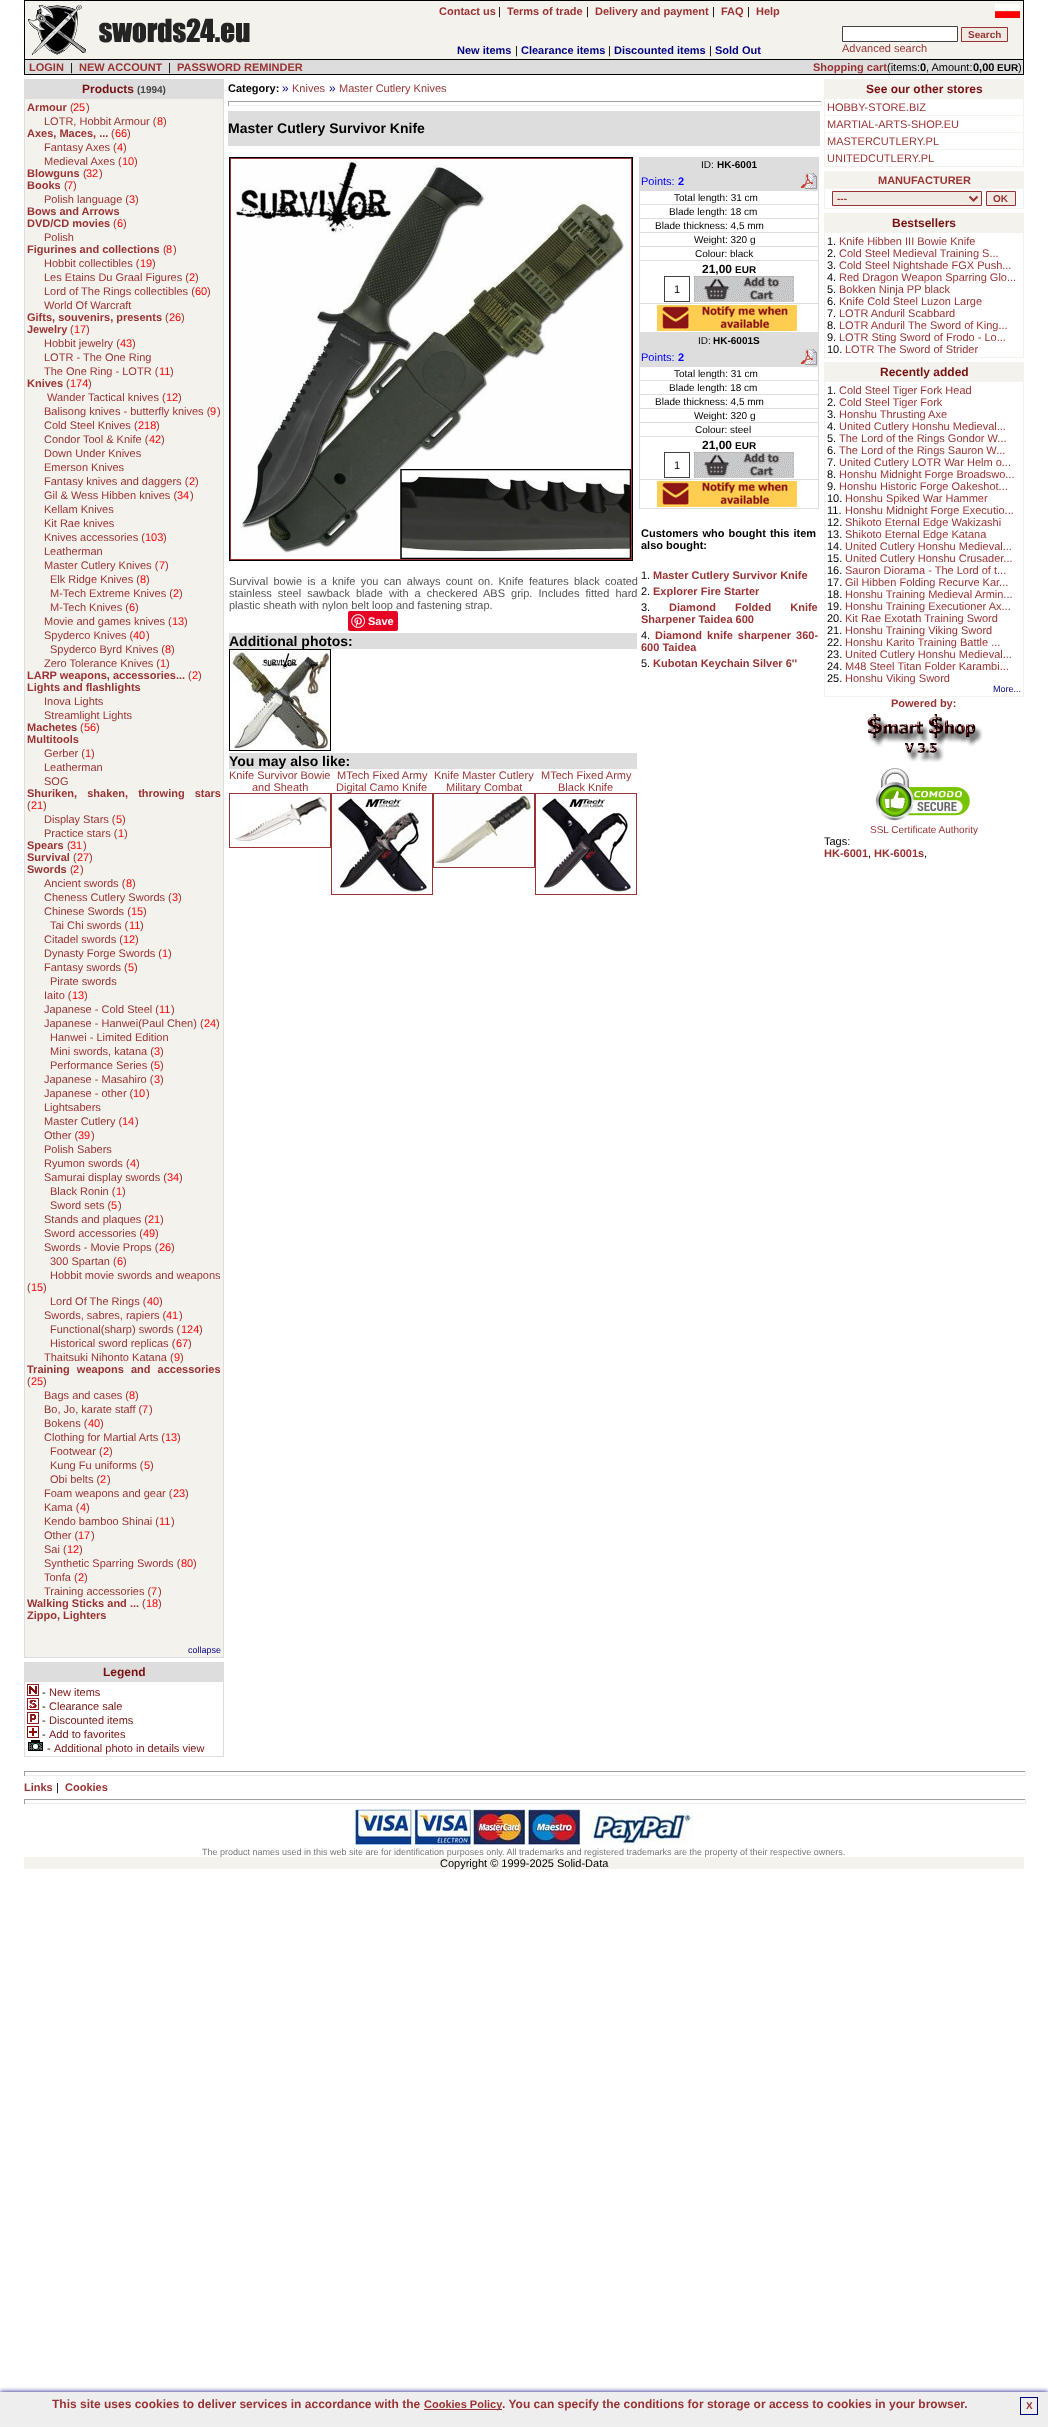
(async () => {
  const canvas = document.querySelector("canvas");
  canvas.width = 1048;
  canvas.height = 2427;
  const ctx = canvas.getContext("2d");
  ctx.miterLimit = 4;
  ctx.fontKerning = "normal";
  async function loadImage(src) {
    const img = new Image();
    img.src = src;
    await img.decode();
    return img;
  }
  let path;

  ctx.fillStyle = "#ffffff";
  ctx.fillRect(0, 0, 1048, 2427);
  ctx.fillStyle = "#000000";
  ctx.fillRect(24, 0, 1000, 75);
  ctx.fillStyle = "#f4f2ed";
  ctx.fillRect(25, 1, 998, 58);
  ctx.drawImage(await loadImage("img/1.png"), 28, 5, 222, 50);
  ctx.drawImage(await loadImage("img/2.png"), 995, 4, 25, 14);
  ctx.fillStyle = "#ffffff";
  ctx.beginPath();
  ctx.rect(842.5, 26.5, 115, 15);
  ctx.fill();
  ctx.strokeStyle = "#444444";
  ctx.stroke();
  ctx.fillStyle = "#efebe4";
  ctx.beginPath();
  ctx.rect(961.5, 27.5, 46, 14);
  ctx.fill();
  ctx.strokeStyle = "#993333";
  ctx.stroke();
  for (const [x, y, w, h, color] of [
    [25, 60, 998, 14, "#dddddd"],
    [24, 79, 200, 1579, "#dddddd"],
    [25, 99, 198, 1558, "#f4f2ed"],
    [24, 1662, 200, 95, "#dddddd"],
    [25, 1682, 198, 74, "#ffffff"],
  ]) {
    ctx.fillStyle = color;
    ctx.fillRect(x, y, w, h);
  }
  ctx.drawImage(await loadImage("img/3.png"), 27, 1684, 12, 12);
  ctx.drawImage(await loadImage("img/4.png"), 27, 1698, 12, 12);
  ctx.drawImage(await loadImage("img/5.png"), 27, 1712, 12, 12);
  ctx.drawImage(await loadImage("img/6.png"), 27, 1726, 12, 12);
  ctx.drawImage(await loadImage("img/7.png"), 28, 1740, 15, 11);
  for (const [x, y, w, h, color] of [
    [228, 101, 594, 1, "#9f9f9f"],
    [821, 101, 1, 5, "#eeeeee"],
    [228, 105, 594, 1, "#eeeeee"],
    [228, 101, 1, 5, "#9f9f9f"],
    [228, 111, 592, 35, "#dddddd"],
  ]) {
    ctx.fillStyle = color;
    ctx.fillRect(x, y, w, h);
  }
  ctx.strokeStyle = "#000000";
  ctx.strokeRect(229.5, 157.5, 403, 403);
  ctx.strokeStyle = "#993333";
  ctx.strokeRect(230.5, 158.5, 401, 401);
  ctx.drawImage(await loadImage("img/8.png"), 231, 159, 400, 400);
  ctx.fillRect(229, 633, 408, 16);
  ctx.strokeStyle = "#000000";
  ctx.strokeRect(229.5, 649.5, 101, 101);
  ctx.drawImage(await loadImage("img/10.png"), 230, 650, 100, 100);
  ctx.fillRect(229, 753, 408, 16);
  ctx.strokeStyle = "#993333";
  ctx.strokeRect(229.5, 793.5, 101, 54);
  ctx.drawImage(await loadImage("img/11.png"), 234, 794, 94, 48);
  ctx.strokeRect(331.5, 793.5, 101, 101);
  ctx.drawImage(await loadImage("img/12.png"), 332, 794, 96, 100);
  ctx.strokeRect(433.5, 793.5, 101, 74);
  ctx.drawImage(await loadImage("img/13.png"), 434, 794, 99, 72);
  ctx.strokeRect(535.5, 793.5, 101, 101);
  ctx.drawImage(await loadImage("img/14.png"), 536, 794, 96, 98);
  ctx.fillRect(639, 157, 180, 352);
  ctx.drawImage(await loadImage("img/15.png"), 801, 173, 16, 16);
  for (const [x, y, w, h, color] of [
    [640, 191, 178, 13, "#ffffff"],
    [640, 205, 178, 13, "#ffffff"],
    [640, 219, 178, 13, "#ffffff"],
    [640, 233, 178, 13, "#ffffff"],
    [640, 247, 178, 13, "#ffffff"],
    [640, 261, 178, 42, "#ffffff"],
  ]) {
    ctx.fillStyle = color;
    ctx.fillRect(x, y, w, h);
  }
  ctx.strokeStyle = "#444444";
  ctx.strokeRect(664.5, 276.5, 25, 25);
  ctx.drawImage(await loadImage("img/16.png"), 694, 276, 100, 26);
  ctx.fillRect(640, 304, 178, 28);
  ctx.drawImage(await loadImage("img/17.png"), 657, 305, 140, 26);
  ctx.drawImage(await loadImage("img/15.png"), 801, 349, 16, 16);
  for (const [x, y, w, h, color] of [
    [640, 367, 178, 13, "#ffffff"],
    [640, 381, 178, 13, "#ffffff"],
    [640, 395, 178, 13, "#ffffff"],
    [640, 409, 178, 13, "#ffffff"],
    [640, 423, 178, 13, "#ffffff"],
    [640, 437, 178, 42, "#ffffff"],
  ]) {
    ctx.fillStyle = color;
    ctx.fillRect(x, y, w, h);
  }
  ctx.strokeRect(664.5, 452.5, 25, 25);
  ctx.drawImage(await loadImage("img/16.png"), 694, 452, 100, 26);
  ctx.fillRect(640, 480, 178, 28);
  ctx.drawImage(await loadImage("img/17.png"), 657, 481, 140, 26);
  for (const [x, y, w, h, color] of [
    [824, 79, 200, 88, "#f4f2ed"],
    [825, 99, 198, 16, "#ffffff"],
    [825, 116, 198, 16, "#ffffff"],
    [825, 133, 198, 16, "#ffffff"],
    [825, 150, 198, 16, "#ffffff"],
    [824, 171, 200, 38, "#f4f2ed"],
    [825, 189, 198, 19, "#ffffff"],
  ]) {
    ctx.fillStyle = color;
    ctx.fillRect(x, y, w, h);
  }
  ctx.fillStyle = "#efebe4";
  ctx.beginPath();
  ctx.rect(832.5, 191.5, 149, 14);
  ctx.fill();
  ctx.strokeStyle = "#993333";
  ctx.stroke();
  path = new Path2D("M969.5 196.5L973.5 200.5L977.5 196.5");
  ctx.lineWidth = 2;
  ctx.stroke(path);
  ctx.beginPath();
  ctx.rect(986.5, 191.5, 29, 14);
  ctx.fill();
  ctx.lineWidth = 1;
  ctx.stroke();
  for (const [x, y, w, h, color] of [
    [824, 213, 200, 145, "#f4f2ed"],
    [825, 233, 198, 124, "#ffffff"],
    [824, 362, 200, 335, "#f4f2ed"],
    [825, 382, 198, 314, "#ffffff"],
  ]) {
    ctx.fillStyle = color;
    ctx.fillRect(x, y, w, h);
  }
  ctx.drawImage(await loadImage("img/18.png"), 867, 714, 116, 48);
  ctx.drawImage(await loadImage("img/19.png"), 875, 768, 95, 53);
  for (const [x, y, w, h, color] of [
    [24, 1771, 1002, 1, "#9f9f9f"],
    [1025, 1771, 1, 5, "#eeeeee"],
    [24, 1775, 1002, 1, "#eeeeee"],
    [24, 1771, 1, 5, "#9f9f9f"],
    [24, 1799, 1002, 1, "#9f9f9f"],
    [1025, 1799, 1, 5, "#eeeeee"],
    [24, 1803, 1002, 1, "#eeeeee"],
    [24, 1799, 1, 5, "#9f9f9f"],
  ]) {
    ctx.fillStyle = color;
    ctx.fillRect(x, y, w, h);
  }
  ctx.drawImage(await loadImage("img/20.png"), 355, 1809, 226, 36);
  ctx.drawImage(await loadImage("img/21.png"), 590, 1809, 103, 36);
  ctx.fillStyle = "#f4f2ed";
  ctx.fillRect(24, 1857, 1000, 12);
  ctx.fillStyle = "#000080";
  ctx.filter = "blur(2.5px)";
  ctx.beginPath();
  ctx.rect(0, 2392, 1048, 35);
  ctx.fill();
  ctx.filter = "none";
  ctx.fillStyle = "#eeeeee";
  ctx.fillRect(0, 2392, 1048, 35);
  ctx.fillStyle = "#993333";
  ctx.fillRect(424, 2409, 78, 1);
  ctx.strokeStyle = "#000080";
  ctx.strokeRect(1020.5, 2397.5, 17, 17);
  ctx.font = "bold 11px Liberation Sans";
  ctx.fillText("Contact us", 439, 15);
  ctx.font = "11px Liberation Sans";
  ctx.fillStyle = "#000000";
  ctx.fillText("|", 498, 15);
  ctx.font = "bold 11px Liberation Sans";
  ctx.fillStyle = "#993333";
  ctx.fillText("Terms of trade", 507, 15);
  ctx.font = "11px Liberation Sans";
  ctx.fillStyle = "#000000";
  ctx.fillText("|", 586, 15);
  ctx.font = "bold 11px Liberation Sans";
  ctx.fillStyle = "#993333";
  ctx.fillText("Delivery and payment", 595, 15);
  ctx.font = "11px Liberation Sans";
  ctx.fillStyle = "#000000";
  ctx.fillText("|", 712, 15);
  ctx.font = "bold 11px Liberation Sans";
  ctx.fillStyle = "#993333";
  ctx.fillText("FAQ", 721, 15);
  ctx.font = "11px Liberation Sans";
  ctx.fillStyle = "#000000";
  ctx.fillText("|", 747, 15);
  ctx.font = "bold 11px Liberation Sans";
  ctx.fillStyle = "#993333";
  ctx.fillText("Help", 756, 15);
  ctx.fillStyle = "#000080";
  ctx.fillText("New items", 457, 54);
  ctx.font = "11px Liberation Sans";
  ctx.fillStyle = "#000000";
  ctx.fillText("|", 515, 54);
  ctx.font = "bold 11px Liberation Sans";
  ctx.fillStyle = "#000080";
  ctx.fillText("Clearance items", 521, 54);
  ctx.font = "11px Liberation Sans";
  ctx.fillStyle = "#000000";
  ctx.fillText("|", 608, 54);
  ctx.font = "bold 11px Liberation Sans";
  ctx.fillStyle = "#000080";
  ctx.fillText("Discounted items", 614, 54);
  ctx.font = "11px Liberation Sans";
  ctx.fillStyle = "#000000";
  ctx.fillText("|", 709, 54);
  ctx.font = "bold 11px Liberation Sans";
  ctx.fillStyle = "#000080";
  ctx.fillText("Sold Out", 715, 54);
  ctx.font = "bold 10px Liberation Sans";
  ctx.fillStyle = "#993333";
  ctx.fillText("Search", 968, 38);
  ctx.font = "11px Liberation Sans";
  ctx.fillText("Advanced search", 842, 52);
  ctx.font = "bold 11px Liberation Sans";
  ctx.fillText("LOGIN", 29, 71);
  ctx.font = "11px Liberation Sans";
  ctx.fillStyle = "#000000";
  ctx.fillText("|", 70, 71);
  ctx.font = "bold 11px Liberation Sans";
  ctx.fillStyle = "#993333";
  ctx.fillText("NEW ACCOUNT", 79, 71);
  ctx.font = "11px Liberation Sans";
  ctx.fillStyle = "#000000";
  ctx.fillText("|", 168, 71);
  ctx.font = "bold 11px Liberation Sans";
  ctx.fillStyle = "#993333";
  ctx.fillText("PASSWORD REMINDER", 177, 71);
  ctx.fillText("Shopping cart", 813, 71);
  ctx.font = "11px Liberation Sans";
  ctx.fillStyle = "#000000";
  ctx.fillText("(items:", 887, 71);
  ctx.font = "bold 11px Liberation Sans";
  ctx.fillText("0", 920, 71);
  ctx.font = "11px Liberation Sans";
  ctx.fillText(", Amount:", 926, 71);
  ctx.font = "bold 11px Liberation Sans";
  ctx.fillText("0,00", 973, 71);
  ctx.font = "bold 10px Liberation Sans";
  ctx.fillText("EUR", 997, 71);
  ctx.font = "11px Liberation Sans";
  ctx.fillText(")", 1018, 71);
  ctx.font = "bold 12px Liberation Sans";
  ctx.fillStyle = "#771111";
  ctx.fillText("Products", 82, 93);
  ctx.font = "bold 10px Liberation Sans";
  ctx.fillStyle = "#444444";
  ctx.fillText("(1994)", 137, 93);
  ctx.font = "bold 11px Liberation Sans";
  ctx.fillStyle = "#993333";
  ctx.fillText("Armour", 27, 111);
  ctx.font = "11px Liberation Sans";
  ctx.fillText("(", 70, 111);
  ctx.fillStyle = "#ff0000";
  ctx.fillText("25", 73, 111);
  ctx.fillStyle = "#993333";
  ctx.fillText(")", 86, 111);
  ctx.fillText("LOTR, Hobbit Armour (", 44, 125);
  ctx.fillStyle = "#ff0000";
  ctx.fillText("8", 157, 125);
  ctx.fillStyle = "#993333";
  ctx.fillText(")", 163, 125);
  ctx.font = "bold 11px Liberation Sans";
  ctx.fillText("Axes, Maces, ...", 27, 137);
  ctx.font = "11px Liberation Sans";
  ctx.fillText("(", 111, 137);
  ctx.fillStyle = "#ff0000";
  ctx.fillText("66", 115, 137);
  ctx.fillStyle = "#993333";
  ctx.fillText(")", 127, 137);
  ctx.fillText("Fantasy Axes (", 44, 151);
  ctx.fillStyle = "#ff0000";
  ctx.fillText("4", 117, 151);
  ctx.fillStyle = "#993333";
  ctx.fillText(")", 123, 151);
  ctx.fillText("Medieval Axes (", 44, 165);
  ctx.fillStyle = "#ff0000";
  ctx.fillText("10", 122, 165);
  ctx.fillStyle = "#993333";
  ctx.fillText(")", 134, 165);
  ctx.font = "bold 11px Liberation Sans";
  ctx.fillText("Blowguns", 27, 177);
  ctx.font = "11px Liberation Sans";
  ctx.fillText("(", 83, 177);
  ctx.fillStyle = "#ff0000";
  ctx.fillText("32", 86, 177);
  ctx.fillStyle = "#993333";
  ctx.fillText(")", 99, 177);
  ctx.font = "bold 11px Liberation Sans";
  ctx.fillText("Books", 27, 189);
  ctx.font = "11px Liberation Sans";
  ctx.fillText("(", 64, 189);
  ctx.fillStyle = "#ff0000";
  ctx.fillText("7", 67, 189);
  ctx.fillStyle = "#993333";
  ctx.fillText(")", 73, 189);
  ctx.fillText("Polish language (", 44, 203);
  ctx.fillStyle = "#ff0000";
  ctx.fillText("3", 129, 203);
  ctx.fillStyle = "#993333";
  ctx.fillText(")", 135, 203);
  ctx.font = "bold 11px Liberation Sans";
  ctx.fillText("Bows and Arrows", 27, 215);
  ctx.fillText("DVD/CD movies", 27, 227);
  ctx.font = "11px Liberation Sans";
  ctx.fillText("(", 113, 227);
  ctx.fillStyle = "#ff0000";
  ctx.fillText("6", 117, 227);
  ctx.fillStyle = "#993333";
  ctx.fillText(")", 123, 227);
  ctx.fillText("Polish", 44, 241);
  ctx.font = "bold 11px Liberation Sans";
  ctx.fillText("Figurines and collections", 27, 253);
  ctx.font = "11px Liberation Sans";
  ctx.fillText("(", 163, 253);
  ctx.fillStyle = "#ff0000";
  ctx.fillText("8", 166, 253);
  ctx.fillStyle = "#993333";
  ctx.fillText(")", 173, 253);
  ctx.fillText("Hobbit collectibles (", 44, 267);
  ctx.fillStyle = "#ff0000";
  ctx.fillText("19", 140, 267);
  ctx.fillStyle = "#993333";
  ctx.fillText(")", 152, 267);
  ctx.fillText("Les Etains Du Graal Figures (", 44, 281);
  ctx.fillStyle = "#ff0000";
  ctx.fillText("2", 189, 281);
  ctx.fillStyle = "#993333";
  ctx.fillText(")", 195, 281);
  ctx.fillText("Lord of The Rings collectibles (", 44, 295);
  ctx.fillStyle = "#ff0000";
  ctx.fillText("60", 195, 295);
  ctx.fillStyle = "#993333";
  ctx.fillText(")", 207, 295);
  ctx.fillText("World Of Warcraft", 44, 309);
  ctx.font = "bold 11px Liberation Sans";
  ctx.fillText("Gifts, souvenirs, presents", 27, 321);
  ctx.font = "11px Liberation Sans";
  ctx.fillText("(", 165, 321);
  ctx.fillStyle = "#ff0000";
  ctx.fillText("26", 169, 321);
  ctx.fillStyle = "#993333";
  ctx.fillText(")", 181, 321);
  ctx.font = "bold 11px Liberation Sans";
  ctx.fillText("Jewelry", 27, 333);
  ctx.font = "11px Liberation Sans";
  ctx.fillText("(", 70, 333);
  ctx.fillStyle = "#ff0000";
  ctx.fillText("17", 74, 333);
  ctx.fillStyle = "#993333";
  ctx.fillText(")", 86, 333);
  ctx.fillText("Hobbit jewelry (", 44, 347);
  ctx.fillStyle = "#ff0000";
  ctx.fillText("43", 120, 347);
  ctx.fillStyle = "#993333";
  for (const [text, x, y] of [
    [")", 132, 347],
    ["LOTR - The One Ring", 44, 361],
    ["The One Ring - LOTR (", 44, 375],
  ]) {
    ctx.fillText(text, x, y);
  }
  ctx.fillStyle = "#ff0000";
  ctx.fillText("11", 159, 375);
  ctx.fillStyle = "#993333";
  ctx.fillText(")", 170, 375);
  ctx.font = "bold 11px Liberation Sans";
  ctx.fillText("Knives", 27, 387);
  ctx.font = "11px Liberation Sans";
  ctx.fillText("(", 66, 387);
  ctx.fillStyle = "#ff0000";
  ctx.fillText("174", 70, 387);
  ctx.fillStyle = "#993333";
  ctx.fillText(")", 88, 387);
  ctx.fillText("Wander Tactical knives (", 47, 401);
  ctx.fillStyle = "#ff0000";
  ctx.fillText("12", 166, 401);
  ctx.fillStyle = "#993333";
  ctx.fillText(")", 178, 401);
  ctx.fillText("Balisong knives - butterfly knives (", 44, 415);
  ctx.fillStyle = "#ff0000";
  ctx.fillText("9", 210, 415);
  ctx.fillStyle = "#993333";
  ctx.fillText(")", 217, 415);
  ctx.fillText("Cold Steel Knives (", 44, 429);
  ctx.fillStyle = "#ff0000";
  ctx.fillText("218", 138, 429);
  ctx.fillStyle = "#993333";
  ctx.fillText(")", 156, 429);
  ctx.fillText("Condor Tool & Knife (", 44, 443);
  ctx.fillStyle = "#ff0000";
  ctx.fillText("42", 149, 443);
  ctx.fillStyle = "#993333";
  for (const [text, x, y] of [
    [")", 161, 443],
    ["Down Under Knives", 44, 457],
    ["Emerson Knives", 44, 471],
    ["Fantasy knives and daggers (", 44, 485],
  ]) {
    ctx.fillText(text, x, y);
  }
  ctx.fillStyle = "#ff0000";
  ctx.fillText("2", 189, 485);
  ctx.fillStyle = "#993333";
  ctx.fillText(")", 195, 485);
  ctx.fillText("Gil & Wess Hibben knives (", 44, 499);
  ctx.fillStyle = "#ff0000";
  ctx.fillText("34", 177, 499);
  ctx.fillStyle = "#993333";
  for (const [text, x, y] of [
    [")", 190, 499],
    ["Kellam Knives", 44, 513],
    ["Kit Rae knives", 44, 527],
    ["Knives accessories (", 44, 541],
  ]) {
    ctx.fillText(text, x, y);
  }
  ctx.fillStyle = "#ff0000";
  ctx.fillText("103", 145, 541);
  ctx.fillStyle = "#993333";
  for (const [text, x, y] of [
    [")", 163, 541],
    ["Leatherman", 44, 555],
    ["Master Cutlery Knives (", 44, 569],
  ]) {
    ctx.fillText(text, x, y);
  }
  ctx.fillStyle = "#ff0000";
  ctx.fillText("7", 159, 569);
  ctx.fillStyle = "#993333";
  ctx.fillText(")", 165, 569);
  ctx.fillText("Elk Ridge Knives (", 50, 583);
  ctx.fillStyle = "#ff0000";
  ctx.fillText("8", 140, 583);
  ctx.fillStyle = "#993333";
  ctx.fillText(")", 146, 583);
  ctx.fillText("M-Tech Extreme Knives (", 50, 597);
  ctx.fillStyle = "#ff0000";
  ctx.fillText("2", 173, 597);
  ctx.fillStyle = "#993333";
  ctx.fillText(")", 179, 597);
  ctx.fillText("M-Tech Knives (", 50, 611);
  ctx.fillStyle = "#ff0000";
  ctx.fillText("6", 129, 611);
  ctx.fillStyle = "#993333";
  ctx.fillText(")", 135, 611);
  ctx.fillText("Movie and games knives (", 44, 625);
  ctx.fillStyle = "#ff0000";
  ctx.fillText("13", 172, 625);
  ctx.fillStyle = "#993333";
  ctx.fillText(")", 184, 625);
  ctx.fillText("Spyderco Knives (", 44, 639);
  ctx.fillStyle = "#ff0000";
  ctx.fillText("40", 133, 639);
  ctx.fillStyle = "#993333";
  ctx.fillText(")", 146, 639);
  ctx.fillText("Spyderco Byrd Knives (", 50, 653);
  ctx.fillStyle = "#ff0000";
  ctx.fillText("8", 165, 653);
  ctx.fillStyle = "#993333";
  ctx.fillText(")", 171, 653);
  ctx.fillText("Zero Tolerance Knives (", 44, 667);
  ctx.fillStyle = "#ff0000";
  ctx.fillText("1", 160, 667);
  ctx.fillStyle = "#993333";
  ctx.fillText(")", 166, 667);
  ctx.font = "bold 11px Liberation Sans";
  ctx.fillText("LARP weapons, accessories...", 27, 679);
  ctx.font = "11px Liberation Sans";
  ctx.fillText("(", 188, 679);
  ctx.fillStyle = "#ff0000";
  ctx.fillText("2", 192, 679);
  ctx.fillStyle = "#993333";
  ctx.fillText(")", 198, 679);
  ctx.font = "bold 11px Liberation Sans";
  ctx.fillText("Lights and flashlights", 27, 691);
  ctx.font = "11px Liberation Sans";
  ctx.fillText("Inova Lights", 44, 705);
  ctx.fillText("Streamlight Lights", 44, 719);
  ctx.font = "bold 11px Liberation Sans";
  ctx.fillText("Machetes", 27, 731);
  ctx.font = "11px Liberation Sans";
  ctx.fillText("(", 80, 731);
  ctx.fillStyle = "#ff0000";
  ctx.fillText("56", 84, 731);
  ctx.fillStyle = "#993333";
  ctx.fillText(")", 96, 731);
  ctx.font = "bold 11px Liberation Sans";
  ctx.fillText("Multitools", 27, 743);
  ctx.font = "11px Liberation Sans";
  ctx.fillText("Gerber (", 44, 757);
  ctx.fillStyle = "#ff0000";
  ctx.fillText("1", 85, 757);
  ctx.fillStyle = "#993333";
  for (const [text, x, y] of [
    [")", 91, 757],
    ["Leatherman", 44, 771],
    ["SOG", 44, 785],
  ]) {
    ctx.fillText(text, x, y);
  }
  ctx.wordSpacing = "7px";
  ctx.font = "bold 11px Liberation Sans";
  ctx.fillText("Shuriken, shaken, throwing stars", 27, 797);
  ctx.wordSpacing = "0px";
  ctx.font = "11px Liberation Sans";
  ctx.fillText("(", 27, 809);
  ctx.fillStyle = "#ff0000";
  ctx.fillText("21", 31, 809);
  ctx.fillStyle = "#993333";
  ctx.fillText(")", 43, 809);
  ctx.fillText("Display Stars (", 44, 823);
  ctx.fillStyle = "#ff0000";
  ctx.fillText("5", 116, 823);
  ctx.fillStyle = "#993333";
  ctx.fillText(")", 122, 823);
  ctx.fillText("Practice stars (", 44, 837);
  ctx.fillStyle = "#ff0000";
  ctx.fillText("1", 118, 837);
  ctx.fillStyle = "#993333";
  ctx.fillText(")", 124, 837);
  ctx.font = "bold 11px Liberation Sans";
  ctx.fillText("Spears", 27, 849);
  ctx.font = "11px Liberation Sans";
  ctx.fillText("(", 67, 849);
  ctx.fillStyle = "#ff0000";
  ctx.fillText("31", 70, 849);
  ctx.fillStyle = "#993333";
  ctx.fillText(")", 83, 849);
  ctx.font = "bold 11px Liberation Sans";
  ctx.fillText("Survival", 27, 861);
  ctx.font = "11px Liberation Sans";
  ctx.fillText("(", 73, 861);
  ctx.fillStyle = "#ff0000";
  ctx.fillText("27", 77, 861);
  ctx.fillStyle = "#993333";
  ctx.fillText(")", 89, 861);
  ctx.font = "bold 11px Liberation Sans";
  ctx.fillText("Swords", 27, 873);
  ctx.font = "11px Liberation Sans";
  ctx.fillText("(", 70, 873);
  ctx.fillStyle = "#ff0000";
  ctx.fillText("2", 73, 873);
  ctx.fillStyle = "#993333";
  ctx.fillText(")", 80, 873);
  ctx.fillText("Ancient swords (", 44, 887);
  ctx.fillStyle = "#ff0000";
  ctx.fillText("8", 126, 887);
  ctx.fillStyle = "#993333";
  ctx.fillText(")", 132, 887);
  ctx.fillText("Cheness Cutlery Swords (", 44, 901);
  ctx.fillStyle = "#ff0000";
  ctx.fillText("3", 172, 901);
  ctx.fillStyle = "#993333";
  ctx.fillText(")", 178, 901);
  ctx.fillText("Chinese Swords (", 44, 915);
  ctx.fillStyle = "#ff0000";
  ctx.fillText("15", 131, 915);
  ctx.fillStyle = "#993333";
  ctx.fillText(")", 143, 915);
  ctx.fillText("Tai Chi swords (", 50, 929);
  ctx.fillStyle = "#ff0000";
  ctx.fillText("11", 129, 929);
  ctx.fillStyle = "#993333";
  ctx.fillText(")", 140, 929);
  ctx.fillText("Citadel swords (", 44, 943);
  ctx.fillStyle = "#ff0000";
  ctx.fillText("12", 123, 943);
  ctx.fillStyle = "#993333";
  ctx.fillText(")", 135, 943);
  ctx.fillText("Dynasty Forge Swords (", 44, 957);
  ctx.fillStyle = "#ff0000";
  ctx.fillText("1", 162, 957);
  ctx.fillStyle = "#993333";
  ctx.fillText(")", 168, 957);
  ctx.fillText("Fantasy swords (", 44, 971);
  ctx.fillStyle = "#ff0000";
  ctx.fillText("5", 128, 971);
  ctx.fillStyle = "#993333";
  for (const [text, x, y] of [
    [")", 134, 971],
    ["Pirate swords", 50, 985],
    ["Iaito (", 44, 999],
  ]) {
    ctx.fillText(text, x, y);
  }
  ctx.fillStyle = "#ff0000";
  ctx.fillText("13", 72, 999);
  ctx.fillStyle = "#993333";
  ctx.fillText(")", 84, 999);
  ctx.fillText("Japanese - Cold Steel (", 44, 1013);
  ctx.fillStyle = "#ff0000";
  ctx.fillText("11", 159, 1013);
  ctx.fillStyle = "#993333";
  ctx.fillText(")", 171, 1013);
  ctx.fillText("Japanese - Hanwei(Paul Chen) (", 44, 1027);
  ctx.fillStyle = "#ff0000";
  ctx.fillText("24", 204, 1027);
  ctx.fillStyle = "#993333";
  for (const [text, x, y] of [
    [")", 216, 1027],
    ["Hanwei - Limited Edition", 50, 1041],
    ["Mini swords, katana (", 50, 1055],
  ]) {
    ctx.fillText(text, x, y);
  }
  ctx.fillStyle = "#ff0000";
  ctx.fillText("3", 154, 1055);
  ctx.fillStyle = "#993333";
  ctx.fillText(")", 160, 1055);
  ctx.fillText("Performance Series (", 50, 1069);
  ctx.fillStyle = "#ff0000";
  ctx.fillText("5", 154, 1069);
  ctx.fillStyle = "#993333";
  ctx.fillText(")", 160, 1069);
  ctx.fillText("Japanese - Masahiro (", 44, 1083);
  ctx.fillStyle = "#ff0000";
  ctx.fillText("3", 154, 1083);
  ctx.fillStyle = "#993333";
  ctx.fillText(")", 160, 1083);
  ctx.fillText("Japanese - other (", 44, 1097);
  ctx.fillStyle = "#ff0000";
  ctx.fillText("10", 133, 1097);
  ctx.fillStyle = "#993333";
  for (const [text, x, y] of [
    [")", 146, 1097],
    ["Lightsabers", 44, 1111],
    ["Master Cutlery (", 44, 1125],
  ]) {
    ctx.fillText(text, x, y);
  }
  ctx.fillStyle = "#ff0000";
  ctx.fillText("14", 122, 1125);
  ctx.fillStyle = "#993333";
  ctx.fillText(")", 135, 1125);
  ctx.fillText("Other (", 44, 1139);
  ctx.fillStyle = "#ff0000";
  ctx.fillText("39", 78, 1139);
  ctx.fillStyle = "#993333";
  for (const [text, x, y] of [
    [")", 91, 1139],
    ["Polish Sabers", 44, 1153],
    ["Ryumon swords (", 44, 1167],
  ]) {
    ctx.fillText(text, x, y);
  }
  ctx.fillStyle = "#ff0000";
  ctx.fillText("4", 130, 1167);
  ctx.fillStyle = "#993333";
  ctx.fillText(")", 136, 1167);
  ctx.fillText("Samurai display swords (", 44, 1181);
  ctx.fillStyle = "#ff0000";
  ctx.fillText("34", 167, 1181);
  ctx.fillStyle = "#993333";
  ctx.fillText(")", 179, 1181);
  ctx.fillText("Black Ronin (", 50, 1195);
  ctx.fillStyle = "#ff0000";
  ctx.fillText("1", 116, 1195);
  ctx.fillStyle = "#993333";
  ctx.fillText(")", 122, 1195);
  ctx.fillText("Sword sets (", 50, 1209);
  ctx.fillStyle = "#ff0000";
  ctx.fillText("5", 111, 1209);
  ctx.fillStyle = "#993333";
  ctx.fillText(")", 118, 1209);
  ctx.fillText("Stands and plaques (", 44, 1223);
  ctx.fillStyle = "#ff0000";
  ctx.fillText("21", 148, 1223);
  ctx.fillStyle = "#993333";
  ctx.fillText(")", 160, 1223);
  ctx.fillText("Sword accessories (", 44, 1237);
  ctx.fillStyle = "#ff0000";
  ctx.fillText("49", 143, 1237);
  ctx.fillStyle = "#993333";
  ctx.fillText(")", 155, 1237);
  ctx.fillText("Swords - Movie Props (", 44, 1251);
  ctx.fillStyle = "#ff0000";
  ctx.fillText("26", 159, 1251);
  ctx.fillStyle = "#993333";
  ctx.fillText(")", 171, 1251);
  ctx.fillText("300 Spartan (", 50, 1265);
  ctx.fillStyle = "#ff0000";
  ctx.fillText("6", 117, 1265);
  ctx.fillStyle = "#993333";
  for (const [text, x, y] of [
    [")", 123, 1265],
    ["Hobbit movie swords and weapons", 50, 1279],
    ["(", 27, 1291],
  ]) {
    ctx.fillText(text, x, y);
  }
  ctx.fillStyle = "#ff0000";
  ctx.fillText("15", 31, 1291);
  ctx.fillStyle = "#993333";
  ctx.fillText(")", 43, 1291);
  ctx.fillText("Lord Of The Rings (", 50, 1305);
  ctx.fillStyle = "#ff0000";
  ctx.fillText("40", 147, 1305);
  ctx.fillStyle = "#993333";
  ctx.fillText(")", 159, 1305);
  ctx.fillText("Swords, sabres, rapiers (", 44, 1319);
  ctx.fillStyle = "#ff0000";
  ctx.fillText("41", 166, 1319);
  ctx.fillStyle = "#993333";
  ctx.fillText(")", 179, 1319);
  ctx.fillText("Functional(sharp) swords (", 50, 1333);
  ctx.fillStyle = "#ff0000";
  ctx.fillText("124", 181, 1333);
  ctx.fillStyle = "#993333";
  ctx.fillText(")", 199, 1333);
  ctx.fillText("Historical sword replicas (", 50, 1347);
  ctx.fillStyle = "#ff0000";
  ctx.fillText("67", 176, 1347);
  ctx.fillStyle = "#993333";
  ctx.fillText(")", 188, 1347);
  ctx.fillText("Thaitsuki Nihonto Katana (", 44, 1361);
  ctx.fillStyle = "#ff0000";
  ctx.fillText("9", 174, 1361);
  ctx.fillStyle = "#993333";
  ctx.fillText(")", 180, 1361);
  ctx.wordSpacing = "4px";
  ctx.font = "bold 11px Liberation Sans";
  ctx.fillText("Training weapons and accessories", 27, 1373);
  ctx.wordSpacing = "0px";
  ctx.font = "11px Liberation Sans";
  ctx.fillText("(", 27, 1385);
  ctx.fillStyle = "#ff0000";
  ctx.fillText("25", 31, 1385);
  ctx.fillStyle = "#993333";
  ctx.fillText(")", 43, 1385);
  ctx.fillText("Bags and cases (", 44, 1399);
  ctx.fillStyle = "#ff0000";
  ctx.fillText("8", 129, 1399);
  ctx.fillStyle = "#993333";
  ctx.fillText(")", 135, 1399);
  ctx.fillText("Bo, Jo, karate staff (", 44, 1413);
  ctx.fillStyle = "#ff0000";
  ctx.fillText("7", 142, 1413);
  ctx.fillStyle = "#993333";
  ctx.fillText(")", 149, 1413);
  ctx.fillText("Bokens (", 44, 1427);
  ctx.fillStyle = "#ff0000";
  ctx.fillText("40", 88, 1427);
  ctx.fillStyle = "#993333";
  ctx.fillText(")", 100, 1427);
  ctx.fillText("Clothing for Martial Arts (", 44, 1441);
  ctx.fillStyle = "#ff0000";
  ctx.fillText("13", 165, 1441);
  ctx.fillStyle = "#993333";
  ctx.fillText(")", 177, 1441);
  ctx.fillText("Footwear (", 50, 1455);
  ctx.fillStyle = "#ff0000";
  ctx.fillText("2", 103, 1455);
  ctx.fillStyle = "#993333";
  ctx.fillText(")", 109, 1455);
  ctx.fillText("Kung Fu uniforms (", 50, 1469);
  ctx.fillStyle = "#ff0000";
  ctx.fillText("5", 144, 1469);
  ctx.fillStyle = "#993333";
  ctx.fillText(")", 150, 1469);
  ctx.fillText("Obi belts (", 50, 1483);
  ctx.fillStyle = "#ff0000";
  ctx.fillText("2", 100, 1483);
  ctx.fillStyle = "#993333";
  ctx.fillText(")", 107, 1483);
  ctx.fillText("Foam weapons and gear (", 44, 1497);
  ctx.fillStyle = "#ff0000";
  ctx.fillText("23", 173, 1497);
  ctx.fillStyle = "#993333";
  ctx.fillText(")", 185, 1497);
  ctx.fillText("Kama (", 44, 1511);
  ctx.fillStyle = "#ff0000";
  ctx.fillText("4", 80, 1511);
  ctx.fillStyle = "#993333";
  ctx.fillText(")", 86, 1511);
  ctx.fillText("Kendo bamboo Shinai (", 44, 1525);
  ctx.fillStyle = "#ff0000";
  ctx.fillText("11", 159, 1525);
  ctx.fillStyle = "#993333";
  ctx.fillText(")", 171, 1525);
  ctx.fillText("Other (", 44, 1539);
  ctx.fillStyle = "#ff0000";
  ctx.fillText("17", 78, 1539);
  ctx.fillStyle = "#993333";
  ctx.fillText(")", 91, 1539);
  ctx.fillText("Sai (", 44, 1553);
  ctx.fillStyle = "#ff0000";
  ctx.fillText("12", 67, 1553);
  ctx.fillStyle = "#993333";
  ctx.fillText(")", 79, 1553);
  ctx.fillText("Synthetic Sparring Swords (", 44, 1567);
  ctx.fillStyle = "#ff0000";
  ctx.fillText("80", 181, 1567);
  ctx.fillStyle = "#993333";
  ctx.fillText(")", 193, 1567);
  ctx.fillText("Tonfa (", 44, 1581);
  ctx.fillStyle = "#ff0000";
  ctx.fillText("2", 78, 1581);
  ctx.fillStyle = "#993333";
  ctx.fillText(")", 84, 1581);
  ctx.fillText("Training accessories (", 44, 1595);
  ctx.fillStyle = "#ff0000";
  ctx.fillText("7", 151, 1595);
  ctx.fillStyle = "#993333";
  ctx.fillText(")", 158, 1595);
  ctx.font = "bold 11px Liberation Sans";
  ctx.fillText("Walking Sticks and ...", 27, 1607);
  ctx.font = "11px Liberation Sans";
  ctx.fillText("(", 142, 1607);
  ctx.fillStyle = "#ff0000";
  ctx.fillText("18", 146, 1607);
  ctx.fillStyle = "#993333";
  ctx.fillText(")", 158, 1607);
  ctx.font = "bold 11px Liberation Sans";
  ctx.fillText("Zippo, Lighters", 27, 1619);
  ctx.font = "9px Liberation Sans";
  ctx.fillStyle = "#000080";
  ctx.fillText("collapse", 188, 1653);
  ctx.font = "bold 12px Liberation Sans";
  ctx.fillStyle = "#771111";
  ctx.fillText("Legend", 103, 1676);
  ctx.font = "11px Liberation Sans";
  ctx.fillStyle = "#000000";
  ctx.fillText("-", 42, 1696);
  ctx.fillStyle = "#771111";
  ctx.fillText("New items", 49, 1696);
  ctx.fillStyle = "#000000";
  ctx.fillText("-", 42, 1710);
  ctx.fillStyle = "#771111";
  ctx.fillText("Clearance sale", 49, 1710);
  ctx.fillStyle = "#000000";
  ctx.fillText("-", 42, 1724);
  ctx.fillStyle = "#771111";
  ctx.fillText("Discounted items", 49, 1724);
  ctx.fillStyle = "#000000";
  ctx.fillText("-", 42, 1738);
  ctx.fillStyle = "#771111";
  ctx.fillText("Add to favorites", 49, 1738);
  ctx.fillStyle = "#000000";
  ctx.fillText("-", 47, 1752);
  ctx.fillStyle = "#771111";
  ctx.fillText("Additional photo in details view", 54, 1752);
  ctx.font = "bold 11px Liberation Sans";
  ctx.fillStyle = "#000000";
  ctx.fillText("Category:", 228, 92);
  ctx.font = "12px Liberation Sans";
  ctx.fillStyle = "#000080";
  ctx.fillText("»", 282, 92);
  ctx.font = "11px Liberation Sans";
  ctx.fillStyle = "#993333";
  ctx.fillText("Knives", 292, 92);
  ctx.font = "12px Liberation Sans";
  ctx.fillStyle = "#000080";
  ctx.fillText("»", 329, 92);
  ctx.font = "11px Liberation Sans";
  ctx.fillStyle = "#993333";
  ctx.fillText("Master Cutlery Knives", 339, 92);
  ctx.font = "bold 14px Liberation Sans";
  ctx.fillStyle = "#000000";
  ctx.fillText("Master Cutlery Survivor Knife", 228, 133);
  ctx.wordSpacing = "2.25px";
  ctx.font = "11px Liberation Sans";
  ctx.fillStyle = "#555555";
  ctx.fillText("Survival bowie is a knife you can always count on. Knife features black coated", 229, 585);
  ctx.wordSpacing = "3px";
  ctx.fillText("stainless steel sawback blade with a checkered ABS grip. Includes fitted hard", 229, 597);
  ctx.wordSpacing = "0px";
  ctx.fillText("plastic sheath with nylon belt loop and fastening strap.", 229, 609);
  ctx.fillStyle = "#e60023";
  ctx.beginPath();
  ctx.roundRect(348, 611, 50, 20, 2);
  ctx.fill();
  ctx.drawImage(await loadImage("img/9.png"), 351, 614, 14, 14);
  ctx.font = "bold 11px Liberation Sans";
  ctx.fillStyle = "#ffffff";
  ctx.fillText("Save", 368, 625);
  ctx.font = "bold 14px Liberation Sans";
  ctx.fillStyle = "#000000";
  ctx.fillText("Additional photos:", 229, 646);
  ctx.fillText("You may also like:", 229, 766);
  ctx.font = "11px Liberation Sans";
  ctx.fillStyle = "#993333";
  for (const [text, x, y] of [
    ["Knife Survivor Bowie", 229, 779],
    ["and Sheath", 252, 791],
    ["MTech Fixed Army", 337, 779],
    ["Digital Camo Knife", 336, 791],
    ["Knife Master Cutlery", 434, 779],
    ["Military Combat", 446, 791],
    ["MTech Fixed Army", 541, 779],
    ["Black Knife", 558, 791],
  ]) {
    ctx.fillText(text, x, y);
  }
  ctx.font = "10px Liberation Sans";
  ctx.fillStyle = "#000000";
  ctx.fillText("ID:", 701, 168);
  ctx.font = "bold 10px Liberation Sans";
  ctx.fillText("HK-6001", 717, 168);
  ctx.font = "11px Liberation Sans";
  ctx.fillStyle = "#0000ff";
  ctx.fillText("Points:", 641, 185);
  ctx.font = "bold 11px Liberation Sans";
  ctx.fillText("2", 678, 185);
  ctx.font = "10px Liberation Sans";
  ctx.fillStyle = "#000000";
  for (const [text, x, y] of [
    ["Total length: 31 cm", 674, 201],
    ["Blade length: 18 cm", 669, 215],
    ["Blade thickness: 4,5 mm", 655, 229],
    ["Weight: 320 g", 694, 243],
    ["Colour: black", 695, 257],
  ]) {
    ctx.fillText(text, x, y);
  }
  ctx.font = "bold 12px Liberation Sans";
  ctx.fillText("21,00", 702, 273);
  ctx.font = "bold 10px Liberation Sans";
  ctx.fillText("EUR", 735, 273);
  ctx.font = "11px Liberation Sans";
  ctx.fillText("1", 674, 293);
  ctx.font = "10px Liberation Sans";
  ctx.fillText("ID:", 698, 344);
  ctx.font = "bold 10px Liberation Sans";
  ctx.fillText("HK-6001S", 713, 344);
  ctx.font = "11px Liberation Sans";
  ctx.fillStyle = "#0000ff";
  ctx.fillText("Points:", 641, 361);
  ctx.font = "bold 11px Liberation Sans";
  ctx.fillText("2", 678, 361);
  ctx.font = "10px Liberation Sans";
  ctx.fillStyle = "#000000";
  for (const [text, x, y] of [
    ["Total length: 31 cm", 674, 377],
    ["Blade length: 18 cm", 669, 391],
    ["Blade thickness: 4,5 mm", 655, 405],
    ["Weight: 320 g", 694, 419],
    ["Colour: steel", 695, 433],
  ]) {
    ctx.fillText(text, x, y);
  }
  ctx.font = "bold 12px Liberation Sans";
  ctx.fillText("21,00", 702, 449);
  ctx.font = "bold 10px Liberation Sans";
  ctx.fillText("EUR", 735, 449);
  ctx.font = "11px Liberation Sans";
  ctx.fillText("1", 674, 469);
  ctx.wordSpacing = "1px";
  ctx.font = "bold 11px Liberation Sans";
  ctx.fillText("Customers who bought this item", 641, 537);
  ctx.wordSpacing = "0px";
  ctx.fillText("also bought:", 641, 549);
  ctx.font = "11px Liberation Sans";
  ctx.fillText("1.", 641, 579);
  ctx.font = "bold 11px Liberation Sans";
  ctx.fillStyle = "#993333";
  ctx.fillText("Master Cutlery Survivor Knife", 653, 579);
  ctx.font = "11px Liberation Sans";
  ctx.fillStyle = "#000000";
  ctx.fillText("2.", 641, 595);
  ctx.font = "bold 11px Liberation Sans";
  ctx.fillStyle = "#993333";
  ctx.fillText("Explorer Fire Starter", 653, 595);
  ctx.font = "11px Liberation Sans";
  ctx.fillStyle = "#000000";
  ctx.fillText("3.", 641, 611);
  ctx.wordSpacing = "16px";
  ctx.font = "bold 11px Liberation Sans";
  ctx.fillStyle = "#993333";
  ctx.fillText("Diamond Folded Knife", 669, 611);
  ctx.wordSpacing = "0px";
  ctx.fillText("Sharpener Taidea 600", 641, 623);
  ctx.font = "11px Liberation Sans";
  ctx.fillStyle = "#000000";
  ctx.fillText("4.", 641, 639);
  ctx.wordSpacing = "2px";
  ctx.font = "bold 11px Liberation Sans";
  ctx.fillStyle = "#993333";
  ctx.fillText("Diamond knife sharpener 360-", 655, 639);
  ctx.wordSpacing = "0px";
  ctx.fillText("600 Taidea", 641, 651);
  ctx.font = "11px Liberation Sans";
  ctx.fillStyle = "#000000";
  ctx.fillText("5.", 641, 667);
  ctx.font = "bold 11px Liberation Sans";
  ctx.fillStyle = "#993333";
  ctx.fillText("Kubotan Keychain Silver 6''", 653, 667);
  ctx.font = "bold 12px Liberation Sans";
  ctx.fillStyle = "#771111";
  ctx.fillText("See our other stores", 866, 93);
  ctx.font = "11px Liberation Sans";
  ctx.fillStyle = "#993333";
  for (const [text, x, y] of [
    ["HOBBY-STORE.BIZ", 827, 111],
    ["MARTIAL-ARTS-SHOP.EU", 827, 128],
    ["MASTERCUTLERY.PL", 827, 145],
    ["UNITEDCUTLERY.PL", 827, 162],
  ]) {
    ctx.fillText(text, x, y);
  }
  ctx.font = "bold 11px Liberation Sans";
  ctx.fillText("MANUFACTURER", 878, 184);
  ctx.font = "bold 10px Liberation Sans";
  ctx.fillText("---", 837, 202);
  ctx.fillText("OK", 993, 202);
  ctx.font = "bold 12px Liberation Sans";
  ctx.fillStyle = "#771111";
  ctx.fillText("Bestsellers", 892, 227);
  ctx.font = "11px Liberation Sans";
  ctx.fillStyle = "#000000";
  ctx.fillText("1.", 827, 245);
  ctx.fillStyle = "#993333";
  ctx.fillText("Knife Hibben III Bowie Knife", 839, 245);
  ctx.fillStyle = "#000000";
  ctx.fillText("2.", 827, 257);
  ctx.fillStyle = "#993333";
  ctx.fillText("Cold Steel Medieval Training S...", 839, 257);
  ctx.fillStyle = "#000000";
  ctx.fillText("3.", 827, 269);
  ctx.fillStyle = "#993333";
  ctx.fillText("Cold Steel Nightshade FGX Push...", 839, 269);
  ctx.fillStyle = "#000000";
  ctx.fillText("4.", 827, 281);
  ctx.fillStyle = "#993333";
  ctx.fillText("Red Dragon Weapon Sparring Glo...", 839, 281);
  ctx.fillStyle = "#000000";
  ctx.fillText("5.", 827, 293);
  ctx.fillStyle = "#993333";
  ctx.fillText("Bokken Ninja PP black", 839, 293);
  ctx.fillStyle = "#000000";
  ctx.fillText("6.", 827, 305);
  ctx.fillStyle = "#993333";
  ctx.fillText("Knife Cold Steel Luzon Large", 839, 305);
  ctx.fillStyle = "#000000";
  ctx.fillText("7.", 827, 317);
  ctx.fillStyle = "#993333";
  ctx.fillText("LOTR Anduril Scabbard", 839, 317);
  ctx.fillStyle = "#000000";
  ctx.fillText("8.", 827, 329);
  ctx.fillStyle = "#993333";
  ctx.fillText("LOTR Anduril The Sword of King...", 839, 329);
  ctx.fillStyle = "#000000";
  ctx.fillText("9.", 827, 341);
  ctx.fillStyle = "#993333";
  ctx.fillText("LOTR Sting Sword of Frodo - Lo...", 839, 341);
  ctx.fillStyle = "#000000";
  ctx.fillText("10.", 827, 353);
  ctx.fillStyle = "#993333";
  ctx.fillText("LOTR The Sword of Strider", 845, 353);
  ctx.font = "bold 12px Liberation Sans";
  ctx.fillStyle = "#771111";
  ctx.fillText("Recently added", 880, 376);
  ctx.font = "11px Liberation Sans";
  ctx.fillStyle = "#000000";
  ctx.fillText("1.", 827, 394);
  ctx.fillStyle = "#993333";
  ctx.fillText("Cold Steel Tiger Fork Head", 839, 394);
  ctx.fillStyle = "#000000";
  ctx.fillText("2.", 827, 406);
  ctx.fillStyle = "#993333";
  ctx.fillText("Cold Steel Tiger Fork", 839, 406);
  ctx.fillStyle = "#000000";
  ctx.fillText("3.", 827, 418);
  ctx.fillStyle = "#993333";
  ctx.fillText("Honshu Thrusting Axe", 839, 418);
  ctx.fillStyle = "#000000";
  ctx.fillText("4.", 827, 430);
  ctx.fillStyle = "#993333";
  ctx.fillText("United Cutlery Honshu Medieval...", 839, 430);
  ctx.fillStyle = "#000000";
  ctx.fillText("5.", 827, 442);
  ctx.fillStyle = "#993333";
  ctx.fillText("The Lord of the Rings Gondor W...", 839, 442);
  ctx.fillStyle = "#000000";
  ctx.fillText("6.", 827, 454);
  ctx.fillStyle = "#993333";
  ctx.fillText("The Lord of the Rings Sauron W...", 839, 454);
  ctx.fillStyle = "#000000";
  ctx.fillText("7.", 827, 466);
  ctx.fillStyle = "#993333";
  ctx.fillText("United Cutlery LOTR War Helm o...", 839, 466);
  ctx.fillStyle = "#000000";
  ctx.fillText("8.", 827, 478);
  ctx.fillStyle = "#993333";
  ctx.fillText("Honshu Midnight Forge Broadswo...", 839, 478);
  ctx.fillStyle = "#000000";
  ctx.fillText("9.", 827, 490);
  ctx.fillStyle = "#993333";
  ctx.fillText("Honshu Historic Forge Oakeshot...", 839, 490);
  ctx.fillStyle = "#000000";
  ctx.fillText("10.", 827, 502);
  ctx.fillStyle = "#993333";
  ctx.fillText("Honshu Spiked War Hammer", 845, 502);
  ctx.fillStyle = "#000000";
  ctx.fillText("11.", 827, 514);
  ctx.fillStyle = "#993333";
  ctx.fillText("Honshu Midnight Forge Executio...", 845, 514);
  ctx.fillStyle = "#000000";
  ctx.fillText("12.", 827, 526);
  ctx.fillStyle = "#993333";
  ctx.fillText("Shikoto Eternal Edge Wakizashi", 845, 526);
  ctx.fillStyle = "#000000";
  ctx.fillText("13.", 827, 538);
  ctx.fillStyle = "#993333";
  ctx.fillText("Shikoto Eternal Edge Katana", 845, 538);
  ctx.fillStyle = "#000000";
  ctx.fillText("14.", 827, 550);
  ctx.fillStyle = "#993333";
  ctx.fillText("United Cutlery Honshu Medieval...", 845, 550);
  ctx.fillStyle = "#000000";
  ctx.fillText("15.", 827, 562);
  ctx.fillStyle = "#993333";
  ctx.fillText("United Cutlery Honshu Crusader...", 845, 562);
  ctx.fillStyle = "#000000";
  ctx.fillText("16.", 827, 574);
  ctx.fillStyle = "#993333";
  ctx.fillText("Sauron Diorama - The Lord of t...", 845, 574);
  ctx.fillStyle = "#000000";
  ctx.fillText("17.", 827, 586);
  ctx.fillStyle = "#993333";
  ctx.fillText("Gil Hibben Folding Recurve Kar...", 845, 586);
  ctx.fillStyle = "#000000";
  ctx.fillText("18.", 827, 598);
  ctx.fillStyle = "#993333";
  ctx.fillText("Honshu Training Medieval Armin...", 845, 598);
  ctx.fillStyle = "#000000";
  ctx.fillText("19.", 827, 610);
  ctx.fillStyle = "#993333";
  ctx.fillText("Honshu Training Executioner Ax...", 845, 610);
  ctx.fillStyle = "#000000";
  ctx.fillText("20.", 827, 622);
  ctx.fillStyle = "#993333";
  ctx.fillText("Kit Rae Exotath Training Sword", 845, 622);
  ctx.fillStyle = "#000000";
  ctx.fillText("21.", 827, 634);
  ctx.fillStyle = "#993333";
  ctx.fillText("Honshu Training Viking Sword", 845, 634);
  ctx.fillStyle = "#000000";
  ctx.fillText("22.", 827, 646);
  ctx.fillStyle = "#993333";
  ctx.fillText("Honshu Karito Training Battle ...", 845, 646);
  ctx.fillStyle = "#000000";
  ctx.fillText("23.", 827, 658);
  ctx.fillStyle = "#993333";
  ctx.fillText("United Cutlery Honshu Medieval...", 845, 658);
  ctx.fillStyle = "#000000";
  ctx.fillText("24.", 827, 670);
  ctx.fillStyle = "#993333";
  ctx.fillText("M48 Steel Titan Folder Karambi...", 845, 670);
  ctx.fillStyle = "#000000";
  ctx.fillText("25.", 827, 682);
  ctx.fillStyle = "#993333";
  ctx.fillText("Honshu Viking Sword", 845, 682);
  ctx.font = "9px Liberation Sans";
  ctx.fillStyle = "#000080";
  ctx.fillText("More...", 993, 692);
  ctx.font = "bold 11px Liberation Sans";
  ctx.fillStyle = "#993333";
  ctx.fillText("Powered by:", 891, 707);
  ctx.font = "10px Liberation Sans";
  ctx.fillText("SSL Certificate Authority", 870, 833);
  ctx.font = "11px Liberation Sans";
  ctx.fillStyle = "#000000";
  ctx.fillText("Tags:", 824, 845);
  ctx.font = "bold 11px Liberation Sans";
  ctx.fillStyle = "#993333";
  ctx.fillText("HK-6001", 824, 857);
  ctx.font = "11px Liberation Sans";
  ctx.fillStyle = "#000000";
  ctx.fillText(",", 868, 857);
  ctx.font = "bold 11px Liberation Sans";
  ctx.fillStyle = "#993333";
  ctx.fillText("HK-6001s", 874, 857);
  ctx.font = "11px Liberation Sans";
  ctx.fillStyle = "#000000";
  ctx.fillText(",", 924, 857);
  ctx.font = "bold 11px Liberation Sans";
  ctx.fillStyle = "#993333";
  ctx.fillText("Links", 24, 1791);
  ctx.font = "11px Liberation Sans";
  ctx.fillStyle = "#000000";
  ctx.fillText("|", 56, 1791);
  ctx.font = "bold 11px Liberation Sans";
  ctx.fillStyle = "#993333";
  ctx.fillText("Cookies", 65, 1791);
  ctx.font = "9px Liberation Sans";
  ctx.fillStyle = "#777777";
  ctx.fillText("The product names used in this web site are for identification purposes only. All trademarks and registered trademarks are the property of their respective owners.", 202, 1855);
  ctx.font = "11px Liberation Sans";
  ctx.fillStyle = "#000000";
  ctx.fillText("Copyright © 1999-2025 Solid-Data", 440, 1867);
  ctx.font = "bold 12px Liberation Sans";
  ctx.fillStyle = "#993333";
  ctx.fillText("This site uses cookies to deliver services in accordance with the", 52, 2408);
  ctx.font = "bold 11px Liberation Sans";
  ctx.fillText("Cookies Policy", 424, 2408);
  ctx.font = "bold 12px Liberation Sans";
  ctx.fillText(". You can specify the conditions for storage or access to cookies in your browser.", 502, 2408);
  ctx.font = "bold 10px Liberation Sans";
  ctx.fillText("X", 1026, 2409);
})();
